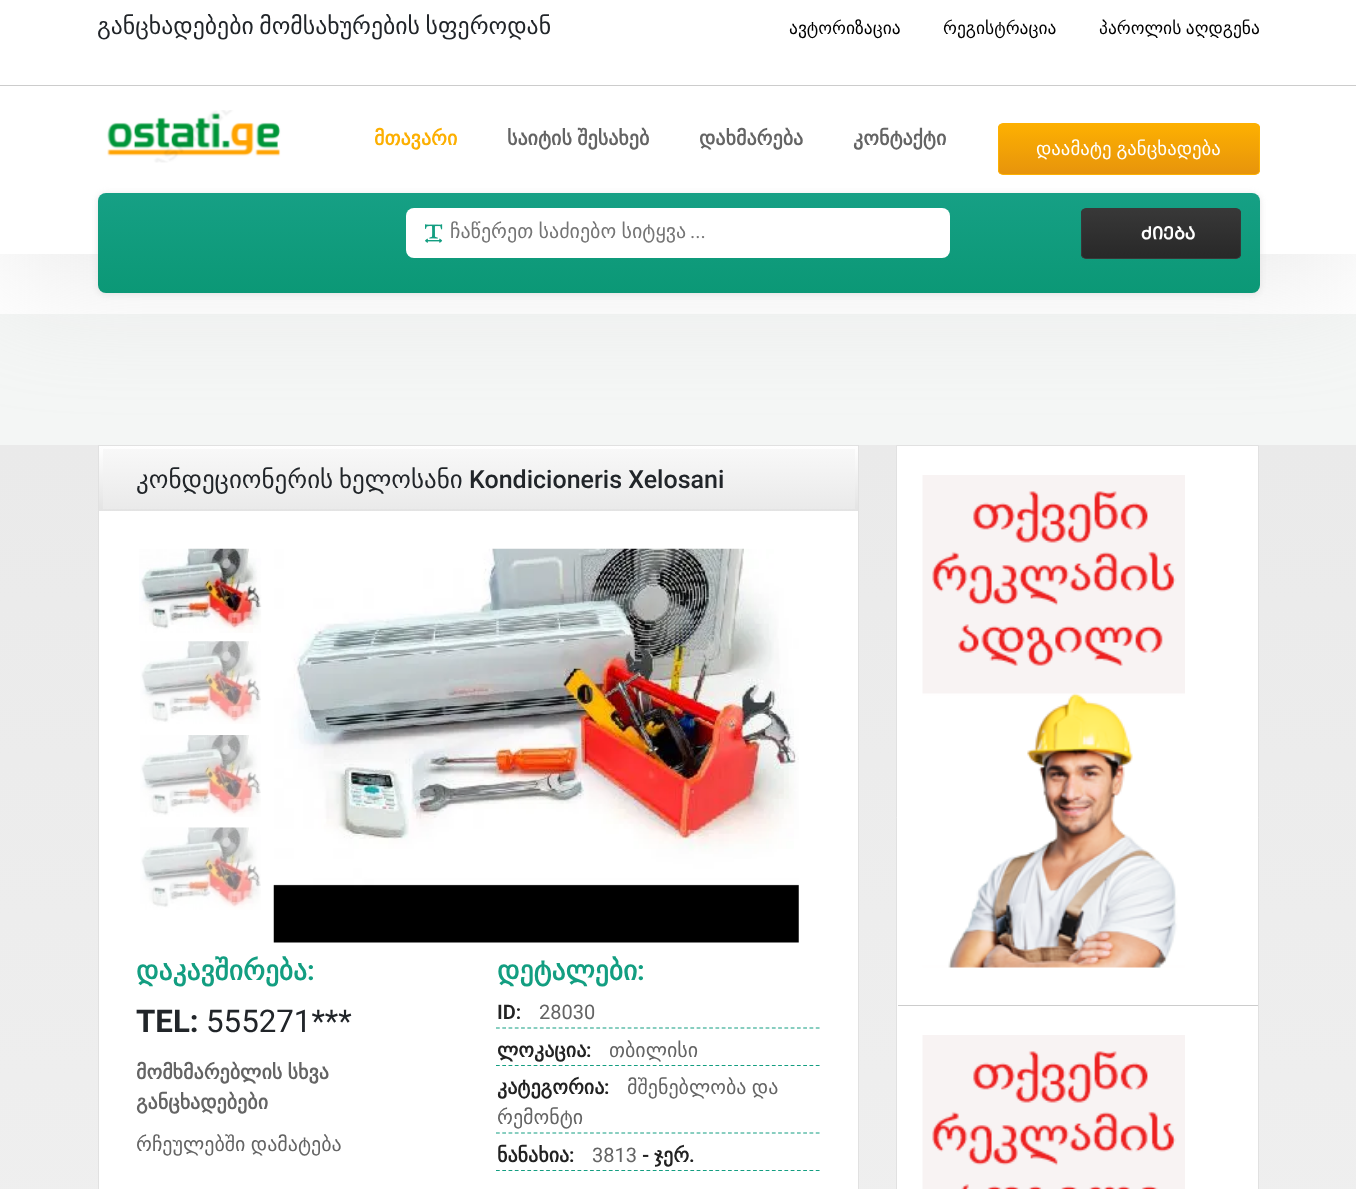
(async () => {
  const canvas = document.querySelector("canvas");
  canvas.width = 1356;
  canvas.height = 1189;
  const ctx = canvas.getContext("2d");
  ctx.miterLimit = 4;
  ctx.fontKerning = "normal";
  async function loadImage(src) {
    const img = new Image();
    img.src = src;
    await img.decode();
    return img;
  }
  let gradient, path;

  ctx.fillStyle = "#ffffff";
  ctx.fillRect(0, 0, 1356, 1189);
  ctx.fillStyle = "#f4f6f5";
  ctx.fillRect(0, 314, 1356, 131);
  gradient = ctx.createLinearGradient(678, 445, 678, 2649);
  gradient.addColorStop(0, "#eaeaea");
  gradient.addColorStop(1, "#f8f8f8");
  ctx.fillStyle = gradient;
  ctx.fillRect(0, 445, 1356, 744);
  ctx.fillStyle = "#ffffff";
  ctx.fillRect(99, 511, 759, 678);
  ctx.strokeStyle = "#e1e1e1";
  ctx.strokeRect(98.5, 445.5, 760, 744);
  gradient = ctx.createLinearGradient(478, 446, 478, 511);
  gradient.addColorStop(0, "#ffffff");
  gradient.addColorStop(1, "#e3e3e3");
  ctx.fillStyle = gradient;
  ctx.fillRect(99, 446, 759, 65);
  gradient = ctx.createLinearGradient(479, 449, 479, 509);
  gradient.addColorStop(0, "#f8f8f8");
  gradient.addColorStop(1, "#eaeaea");
  ctx.fillStyle = gradient;
  ctx.fillRect(103, 449, 752, 60);
  ctx.fillStyle = "#ffffff";
  ctx.beginPath();
  ctx.rect(896.5, 445.5, 362, 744);
  ctx.fill();
  ctx.stroke();
  ctx.fillStyle = "rgba(212, 212, 212, 0.5)";
  ctx.filter = "blur(62.5px)";
  ctx.beginPath();
  ctx.rect(0, 19, 1356, 254);
  ctx.fill();
  ctx.filter = "none";
  ctx.fillStyle = "#ffffff";
  ctx.fillRect(0, 0, 1356, 254);
  ctx.fillStyle = "#cccccc";
  ctx.fillRect(0, 85, 1356, 1);
  ctx.drawImage(await loadImage("img/1.png"), 107, 110, 174, 53);
  ctx.save();
  ctx.beginPath();
  ctx.roundRect(998, 123, 262, 52, 5);
  ctx.clip();
  gradient = ctx.createLinearGradient(1129, 124, 1129, 174);
  gradient.addColorStop(0, "#fdb001");
  gradient.addColorStop(1, "#e7940c");
  ctx.fillStyle = gradient;
  ctx.fillRect(998, 124, 262, 50);
  ctx.restore();
  ctx.beginPath();
  ctx.roundRect(998.5, 123.5, 261, 51, 4.5);
  ctx.strokeStyle = "#fdb001";
  ctx.stroke();
  ctx.fillStyle = "rgba(217, 218, 218, 0.75)";
  ctx.filter = "blur(3px)";
  ctx.beginPath();
  ctx.roundRect(98, 194, 1162, 100, 8);
  ctx.fill();
  ctx.filter = "none";
  gradient = ctx.createLinearGradient(679, 192, 679, 293);
  gradient.addColorStop(0, "#16a085");
  gradient.addColorStop(1, "#0b9876");
  ctx.fillStyle = gradient;
  ctx.beginPath();
  ctx.roundRect(98, 193, 1162, 100, 8);
  ctx.fill();
  ctx.fillStyle = "#ffffff";
  ctx.beginPath();
  ctx.roundRect(406, 208, 544, 50, 8);
  ctx.fill();
  ctx.drawImage(await loadImage("img/2.png"), 425, 224, 18, 19);
  ctx.save();
  ctx.beginPath();
  ctx.roundRect(1081, 208, 160, 51, 5);
  ctx.clip();
  gradient = ctx.createLinearGradient(1161, 209, 1161, 258);
  gradient.addColorStop(0, "#383838");
  gradient.addColorStop(1, "#282828");
  ctx.fillStyle = gradient;
  ctx.fillRect(1081, 209, 160, 49);
  ctx.restore();
  ctx.beginPath();
  ctx.roundRect(1081.5, 208.5, 159, 50, 4.5);
  ctx.strokeStyle = "#383838";
  ctx.stroke();
  ctx.drawImage(await loadImage("img/3.png"), 139, 548, 123, 85);
  ctx.drawImage(await loadImage("img/4.png"), 140, 641, 121, 83);
  ctx.drawImage(await loadImage("img/5.png"), 140, 735, 121, 82);
  ctx.drawImage(await loadImage("img/6.png"), 140, 827, 121, 83);
  ctx.drawImage(await loadImage("img/7.png"), 273, 548, 526, 395);
  path = new Path2D("M496 1028H820");
  ctx.strokeStyle = "#139e81";
  ctx.lineWidth = 1.2;
  ctx.setLineDash([3.75, 2.52]);
  ctx.stroke(path);
  path = new Path2D("M496 1065.5H820");
  ctx.stroke(path);
  path = new Path2D("M496 1133H820");
  ctx.stroke(path);
  path = new Path2D("M496 1170.5H820");
  ctx.stroke(path);
  ctx.fillStyle = "#cccccc";
  ctx.fillRect(898, 1005, 360, 1);
  ctx.drawImage(await loadImage("img/8.png"), 922, 475, 263, 493);
  ctx.drawImage(await loadImage("img/9.png"), 922, 1035, 263, 154);
  ctx.wordSpacing = "-2px";
  ctx.font = "23.75px DejaVu Sans";
  ctx.fillStyle = "#212529";
  ctx.fillText("განცხადებები მომსახურების სფეროდან", 97, 34);
  ctx.wordSpacing = "0px";
  ctx.font = "17.5px DejaVu Sans";
  ctx.fillStyle = "#000000";
  ctx.fillText("ავტორიზაცია", 789, 34);
  ctx.fillText("რეგისტრაცია", 943, 34);
  ctx.wordSpacing = "-1px";
  ctx.fillText("პაროლის აღდგენა", 1099, 34);
  ctx.wordSpacing = "0px";
  ctx.font = "bold 20px DejaVu Sans";
  ctx.fillStyle = "#fcaf01";
  ctx.fillText("მთავარი", 374, 145);
  ctx.wordSpacing = "-1px";
  ctx.fillStyle = "#646464";
  ctx.fillText("საიტის შესახებ", 507, 145);
  ctx.wordSpacing = "0px";
  ctx.fillText("დახმარება", 699, 145);
  ctx.fillText("კონტაქტი", 853, 145);
  ctx.wordSpacing = "-1px";
  ctx.font = "18.75px DejaVu Sans";
  ctx.fillStyle = "#ffffff";
  ctx.fillText("დაამატე განცხადება", 1036, 155);
  ctx.font = "20px DejaVu Sans";
  ctx.fillStyle = "#757575";
  ctx.fillText("ჩაწერეთ საძიებო სიტყვა", 450, 238);
  ctx.wordSpacing = "0px";
  ctx.font = "20px Roboto";
  ctx.fillText("...", 690, 238);
  ctx.font = "bold 17.5px Roboto";
  ctx.fillStyle = "#ffffff";
  ctx.fillText("ᲫᲘᲔᲑᲐ", 1141, 239);
  ctx.font = "25px DejaVu Sans";
  ctx.fillStyle = "#212529";
  ctx.fillText("კონდეციონერის", 136, 488);
  ctx.fillText("ხელოსანი", 339, 488);
  ctx.font = "500 25px Roboto";
  ctx.fillText("Kondicioneris Xelosani", 469, 488);
  ctx.font = "bold 27.5px DejaVu Sans";
  ctx.fillStyle = "#139e81";
  ctx.fillText("დაკავშირება", 136, 980);
  ctx.font = "bold 27.5px Roboto";
  ctx.fillText(":", 307, 980);
  ctx.font = "bold 31.25px Roboto";
  ctx.fillStyle = "#212529";
  ctx.fillText("TEL:", 136, 1032);
  ctx.font = "31.25px Roboto";
  ctx.fillText("555271***", 206, 1032);
  ctx.wordSpacing = "-1px";
  ctx.font = "bold 20px DejaVu Sans";
  ctx.fillStyle = "#646464";
  ctx.fillText("მომხმარებლის სხვა", 136, 1079);
  ctx.wordSpacing = "0px";
  ctx.fillText("განცხადებები", 136, 1109);
  ctx.wordSpacing = "-1px";
  ctx.font = "20px DejaVu Sans";
  ctx.fillText("რჩეულებში დამატება", 136, 1151);
  ctx.wordSpacing = "0px";
  ctx.font = "bold 27.5px DejaVu Sans";
  ctx.fillStyle = "#139e81";
  ctx.fillText("დეტალები", 497, 980);
  ctx.font = "bold 27.5px Roboto";
  ctx.fillText(":", 637, 980);
  ctx.font = "600 20px Roboto";
  ctx.fillStyle = "#222222";
  ctx.fillText("ID:", 497, 1019);
  ctx.font = "20px Roboto";
  ctx.fillStyle = "#646464";
  ctx.fillText("28030", 539, 1019);
  ctx.font = "bold 20px DejaVu Sans";
  ctx.fillStyle = "#222222";
  ctx.fillText("ლოკაცია", 497, 1057);
  ctx.font = "600 20px Roboto";
  ctx.fillText(":", 586, 1057);
  ctx.font = "20px DejaVu Sans";
  ctx.fillStyle = "#646464";
  ctx.fillText("თბილისი", 609, 1057);
  ctx.font = "bold 20px DejaVu Sans";
  ctx.fillStyle = "#222222";
  ctx.fillText("კატეგორია", 497, 1094);
  ctx.font = "600 20px Roboto";
  ctx.fillText(":", 604, 1094);
  ctx.wordSpacing = "-1px";
  ctx.font = "20px DejaVu Sans";
  ctx.fillStyle = "#646464";
  ctx.fillText("მშენებლობა და", 627, 1094);
  ctx.wordSpacing = "0px";
  ctx.fillText("რემონტი", 497, 1124);
  ctx.font = "bold 20px DejaVu Sans";
  ctx.fillStyle = "#222222";
  ctx.fillText("ნანახია", 497, 1162);
  ctx.font = "600 20px Roboto";
  ctx.fillText(":", 569, 1162);
  ctx.font = "20px Roboto";
  ctx.fillStyle = "#646464";
  ctx.fillText("3813", 592, 1162);
  ctx.font = "600 20px Roboto";
  ctx.fillStyle = "#222222";
  ctx.fillText("-", 642, 1162);
  ctx.font = "bold 20px DejaVu Sans";
  ctx.fillText("ჯერ", 654, 1162);
  ctx.font = "600 20px Roboto";
  ctx.fillText(".", 689, 1162);
})();
